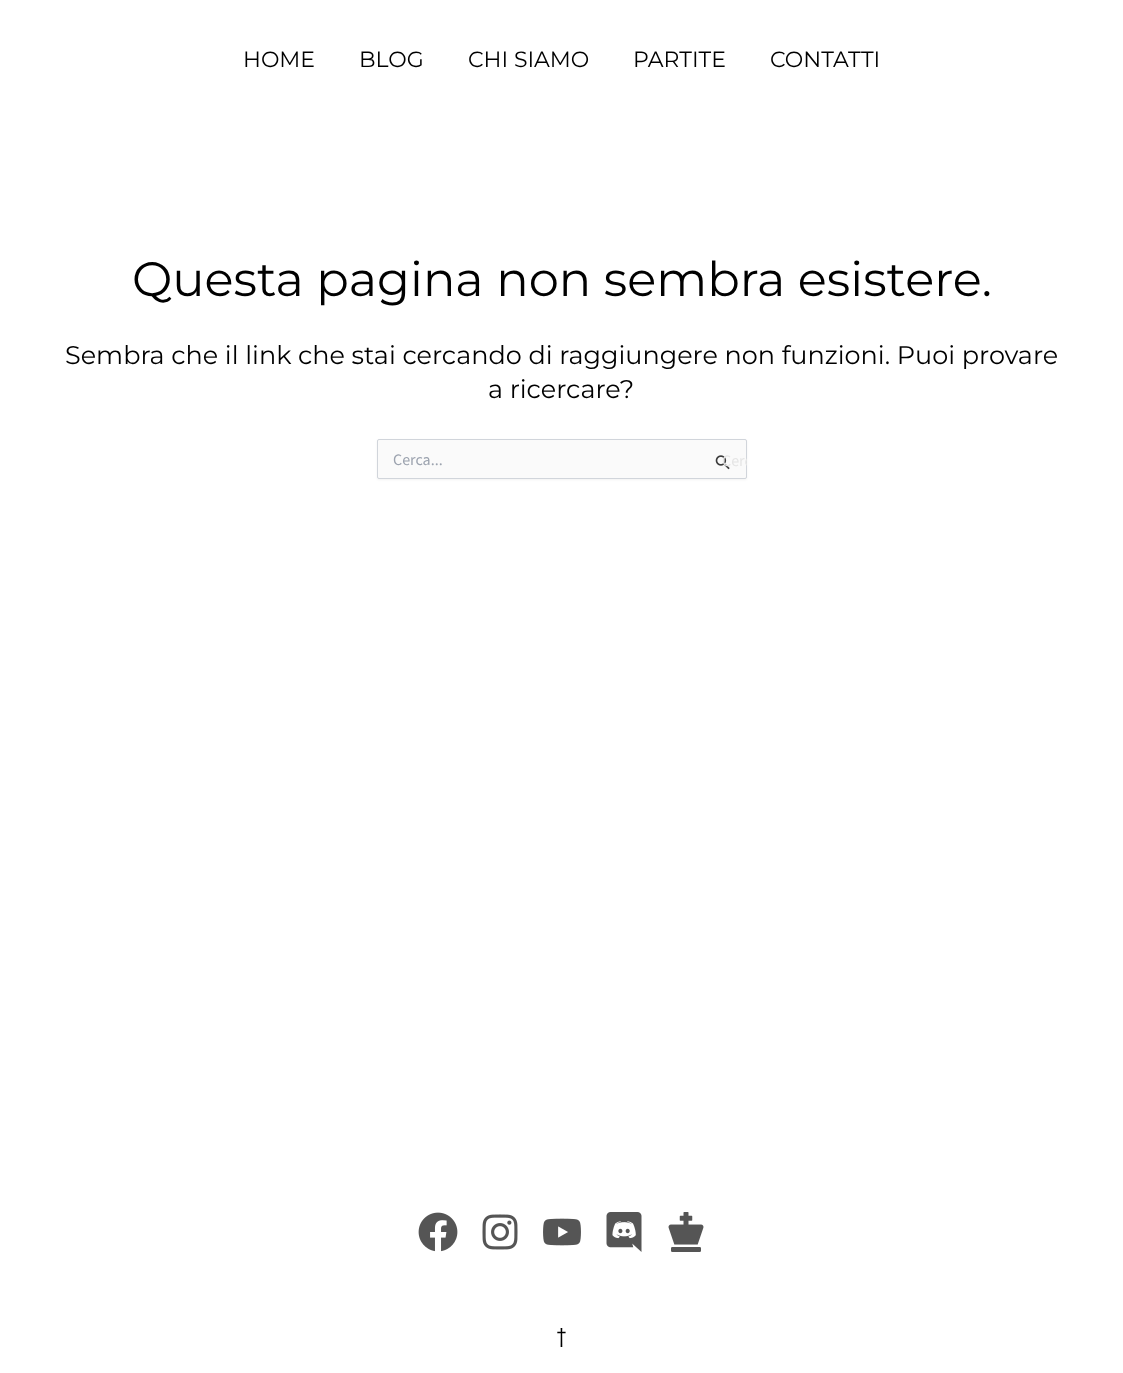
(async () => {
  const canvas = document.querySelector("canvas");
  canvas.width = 1123;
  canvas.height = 1373;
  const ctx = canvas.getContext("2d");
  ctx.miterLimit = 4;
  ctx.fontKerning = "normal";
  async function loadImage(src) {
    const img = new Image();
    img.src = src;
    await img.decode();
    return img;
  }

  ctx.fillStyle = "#ffffff";
  ctx.fillRect(0, 0, 1123, 1373);
  ctx.fillStyle = "rgba(0, 0, 0, 0.05)";
  ctx.filter = "blur(1px)";
  ctx.beginPath();
  ctx.roundRect(377, 440, 370, 40, 2);
  ctx.fill();
  ctx.filter = "none";
  ctx.fillStyle = "#fafafa";
  ctx.beginPath();
  ctx.roundRect(377.5, 439.5, 369, 39, 1.5);
  ctx.fill();
  ctx.strokeStyle = "#d1d5db";
  ctx.stroke();
  ctx.drawImage(await loadImage("img/1.png"), 715, 455, 15, 15);
  ctx.drawImage(await loadImage("img/2.png"), 418, 1212, 40, 40);
  ctx.drawImage(await loadImage("img/3.png"), 482, 1214, 36, 36);
  ctx.drawImage(await loadImage("img/4.png"), 543, 1218, 38, 28);
  ctx.drawImage(await loadImage("img/5.png"), 606, 1212, 36, 40);
  ctx.drawImage(await loadImage("img/6.png"), 668, 1212, 36, 40);
  ctx.font = "22px Montserrat";
  ctx.fillStyle = "#000000";
  for (const [text, x, y] of [
    ["HOME", 243, 67],
    ["BLOG", 359, 67],
    ["CHI SIAMO", 468, 67],
    ["PARTITE", 633, 67],
    ["CONTATTI", 770, 67],
  ]) {
    ctx.fillText(text, x, y);
  }
  ctx.font = "48px Montserrat";
  ctx.fillText("Questa pagina non sembra esistere.", 132, 296);
  ctx.font = "25.5px Montserrat";
  ctx.fillText("Sembra che il link che stai cercando di raggiungere non funzioni. Puoi provare", 65, 364);
  ctx.fillText("a ricercare?", 488, 398);
  ctx.font = "16px Source Sans Pro";
  ctx.fillStyle = "#9ca3af";
  ctx.fillText("Cerca...", 393, 465);
  ctx.save();
  ctx.beginPath();
  ctx.roundRect(702, 439, 45, 42, 2);
  ctx.clip();
  ctx.fillStyle = "#e5e5e5";
  ctx.fillText("Cerc", 722, 466);
  ctx.restore();
  ctx.font = "24px Source Sans Pro";
  ctx.fillStyle = "#000000";
  ctx.fillText("†", 556, 1345);
})();
